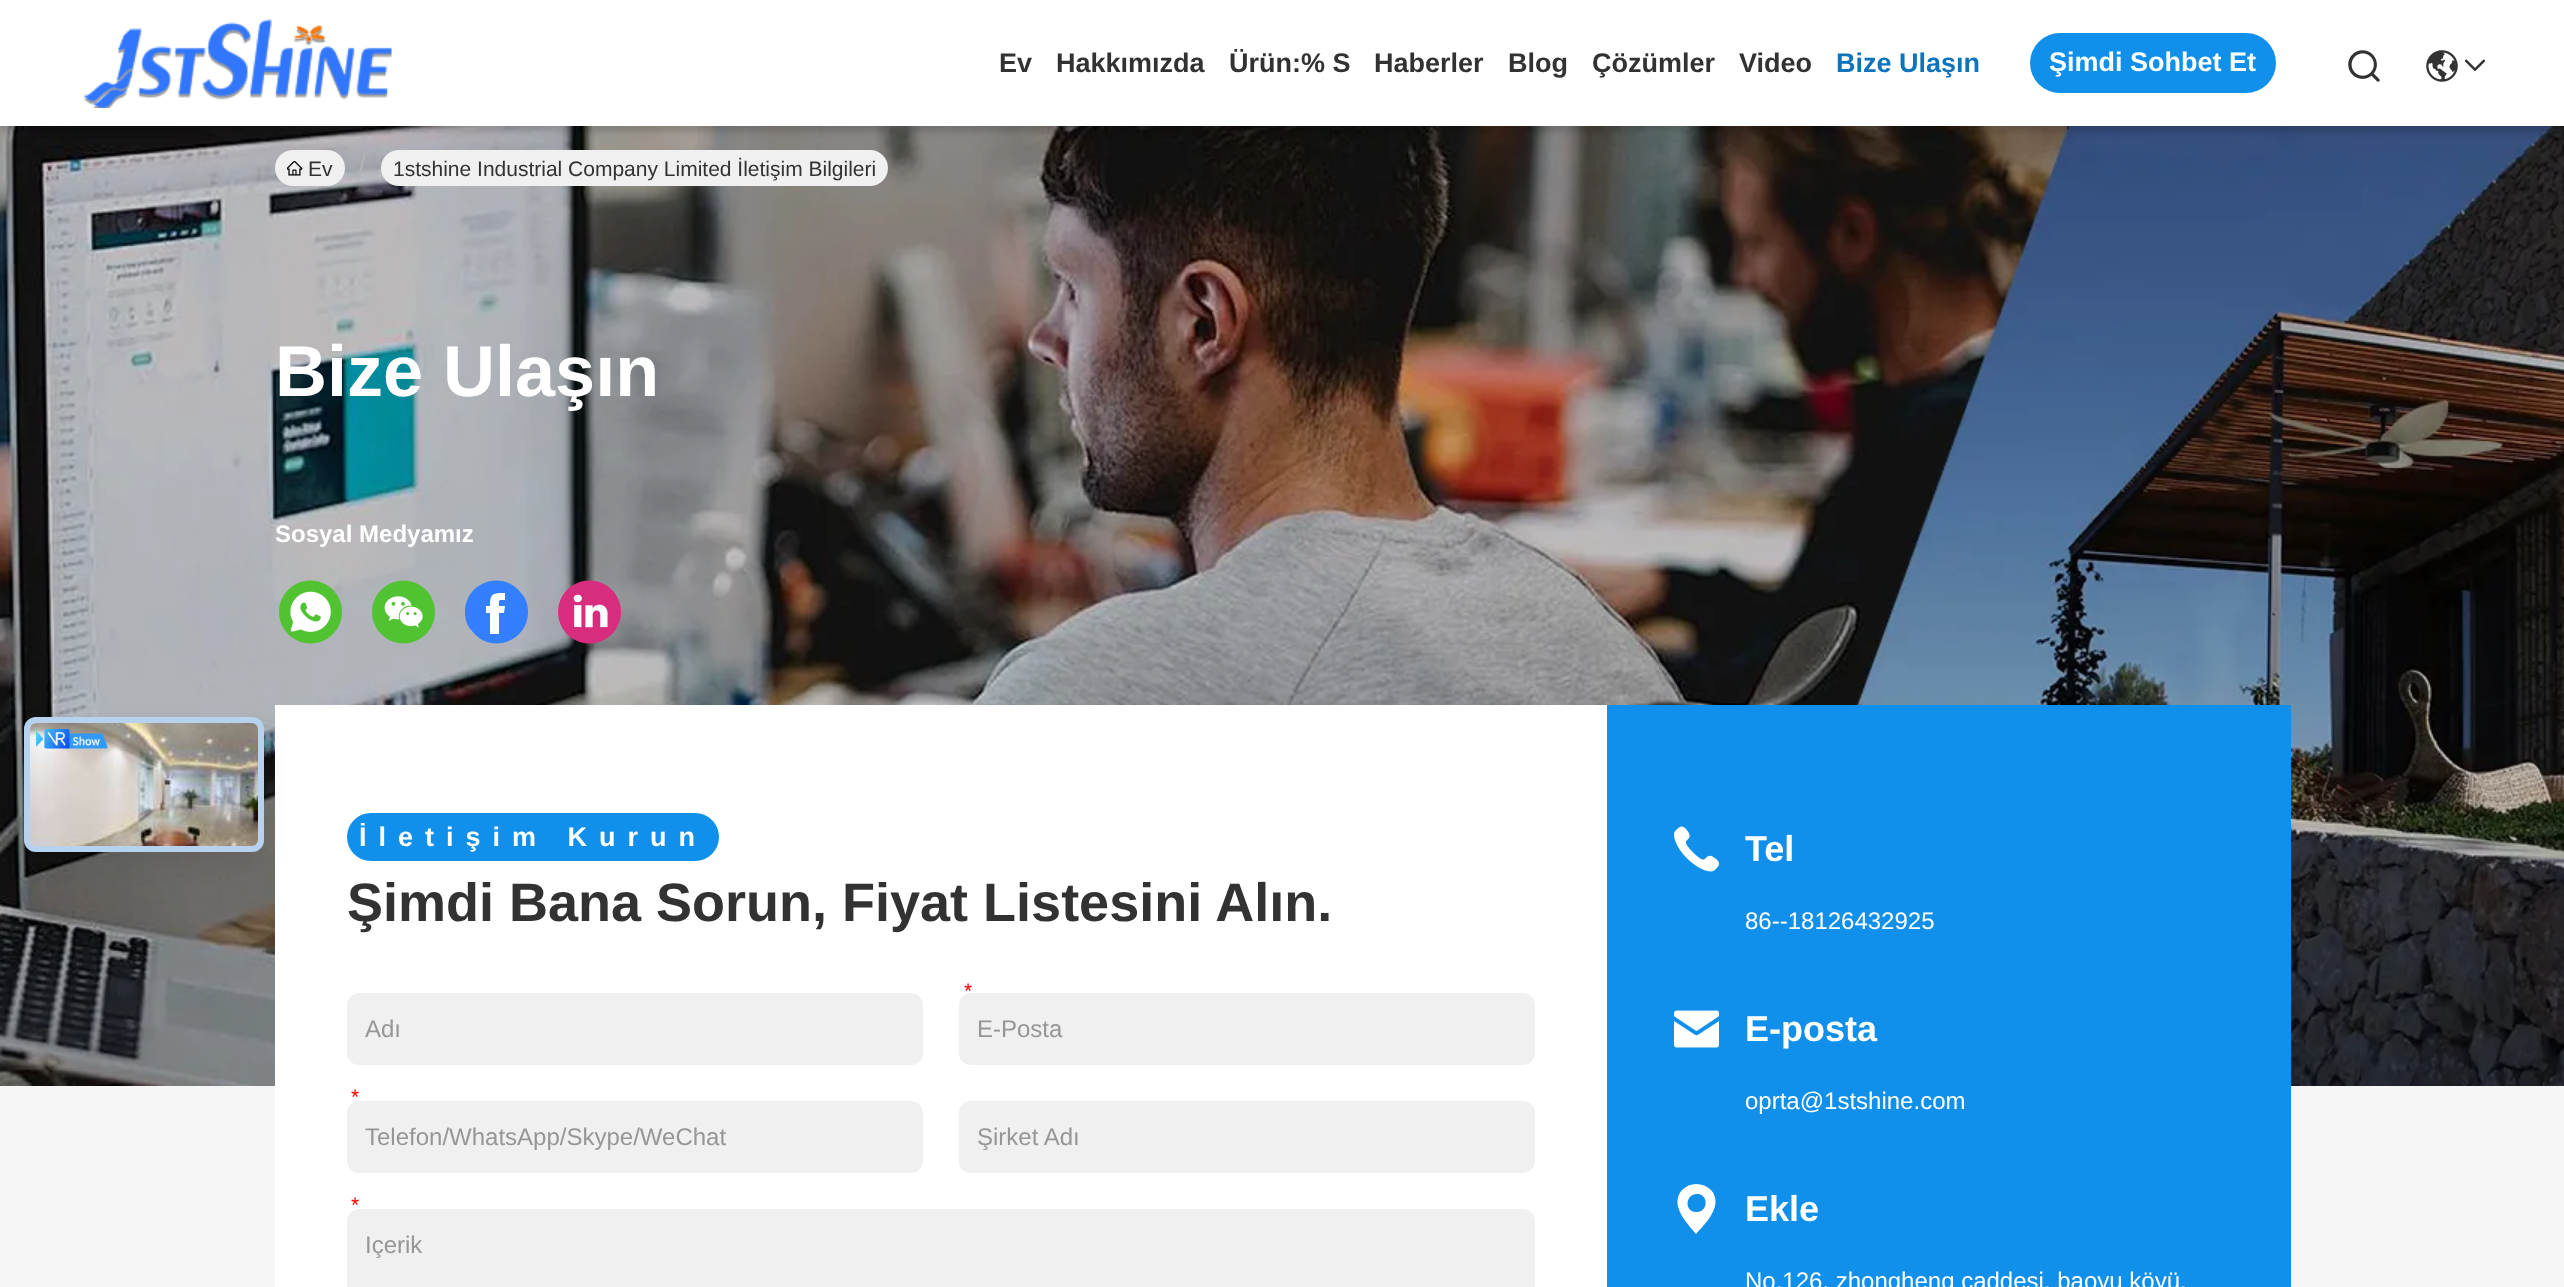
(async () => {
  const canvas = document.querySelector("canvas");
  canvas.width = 2564;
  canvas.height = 1287;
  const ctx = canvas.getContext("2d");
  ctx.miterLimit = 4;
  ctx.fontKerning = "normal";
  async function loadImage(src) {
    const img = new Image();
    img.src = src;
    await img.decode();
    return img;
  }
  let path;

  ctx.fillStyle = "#f6f6f6";
  ctx.fillRect(0, 0, 2564, 1287);
  ctx.drawImage(await loadImage("img/7.png"), 0, 126, 2564, 960);
  ctx.fillStyle = "rgba(0, 0, 0, 0.15)";
  ctx.filter = "blur(3px)";
  ctx.beginPath();
  ctx.rect(0, 6, 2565, 126);
  ctx.fill();
  ctx.filter = "none";
  ctx.fillStyle = "#ffffff";
  ctx.fillRect(0, 0, 2564, 126);
  ctx.drawImage(await loadImage("img/1.png"), 83, 19, 309, 89);
  ctx.fillStyle = "#1090eb";
  ctx.beginPath();
  ctx.roundRect(2030, 33, 246, 60, 30);
  ctx.fill();
  ctx.drawImage(await loadImage("img/2.png"), 2348, 50, 32, 32);
  ctx.drawImage(await loadImage("img/3.png"), 2426, 50, 32, 32);
  ctx.drawImage(await loadImage("img/4.png"), 2464, 59, 21, 12);
  ctx.fillStyle = "#ffffff";
  ctx.fillRect(275, 705, 1332, 582);
  ctx.fillStyle = "rgba(0, 0, 0, 0.08)";
  ctx.filter = "blur(12px)";
  ctx.beginPath();
  ctx.roundRect(24, 729, 240, 135, 12);
  ctx.fill();
  ctx.filter = "none";
  ctx.fillStyle = "#eeeeee";
  ctx.beginPath();
  ctx.roundRect(24, 717, 240, 135, 12);
  ctx.fill();
  ctx.beginPath();
  ctx.roundRect(27, 720, 234, 129, 9);
  ctx.strokeStyle = "rgba(4, 120, 237, 0.24)";
  ctx.lineWidth = 6;
  ctx.stroke();
  ctx.drawImage(await loadImage("img/5.png"), 30, 723, 228, 123);
  ctx.drawImage(await loadImage("img/6.png"), 36, 729, 72, 20);
  ctx.fillStyle = "#f0f0f0";
  ctx.beginPath();
  ctx.roundRect(275, 150, 70, 36, 18);
  ctx.fill();
  ctx.drawImage(await loadImage("img/8.png"), 287, 161, 16, 15);
  ctx.save();
  ctx.beginPath();
  ctx.rect(357, 155, 9, 27);
  ctx.clip();
  ctx.fillStyle = "#b4b4b4";
  path = new Path2D("M365.5 154.5L359 181H357L363.5 154.5Z");
  ctx.fill(path, "evenodd");
  ctx.restore();
  ctx.beginPath();
  ctx.roundRect(381, 150, 507, 36, 18);
  ctx.fill();
  ctx.fillStyle = "#ffffff";
  ctx.beginPath();
  ctx.arc(311, 612, 27, 0, Math.PI * 2);
  ctx.fill();
  ctx.drawImage(await loadImage("img/9.png"), 279, 580, 63, 64);
  ctx.beginPath();
  ctx.arc(404, 612, 27, 0, Math.PI * 2);
  ctx.fill();
  ctx.drawImage(await loadImage("img/10.png"), 372, 580, 63, 64);
  ctx.beginPath();
  ctx.arc(497, 612, 27, 0, Math.PI * 2);
  ctx.fill();
  ctx.fillStyle = "#337fff";
  path = new Path2D("M465 612C465 582 503 569 521 593C526 598 528 605 528 612C528 642 490 655 472 631C467 626 465 619 465 612ZM504 613L505 606H499C499 599 498 600 505 600V593C493 593 490 593 490 606H486V613H490V634H499V613Z");
  ctx.fill(path);
  ctx.fillStyle = "#ffffff";
  ctx.beginPath();
  ctx.arc(590, 612, 27, 0, Math.PI * 2);
  ctx.fill();
  ctx.drawImage(await loadImage("img/11.png"), 558, 580, 63, 64);
  ctx.fillStyle = "#1090eb";
  ctx.beginPath();
  ctx.roundRect(347, 813, 372, 48, 24);
  ctx.fill();
  ctx.fillStyle = "#f0f0f0";
  ctx.beginPath();
  ctx.roundRect(347, 993, 576, 72, 12);
  ctx.fill();
  ctx.beginPath();
  ctx.roundRect(959, 993, 576, 72, 12);
  ctx.fill();
  ctx.beginPath();
  ctx.roundRect(347, 1101, 576, 72, 12);
  ctx.fill();
  ctx.beginPath();
  ctx.roundRect(959, 1101, 576, 72, 12);
  ctx.fill();
  ctx.beginPath();
  ctx.roundRect(347, 1209, 1188, 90, 12);
  ctx.fill();
  ctx.fillStyle = "#1090eb";
  ctx.fillRect(1607, 705, 684, 582);
  ctx.drawImage(await loadImage("img/12.png"), 1674, 826, 45, 46);
  ctx.drawImage(await loadImage("img/13.png"), 1674, 1010, 45, 38);
  ctx.fillStyle = "#ffffff";
  path = new Path2D("M1696 1184C1702 1184 1707 1186 1711 1190C1724 1205 1706 1223 1696 1234C1687 1223 1669 1205 1682 1190C1686 1186 1691 1184 1696 1184ZM1696 1212C1708 1213 1709 1195 1698 1194C1685 1193 1684 1212 1696 1212Z");
  ctx.fill(path);
  ctx.font = "bold 27px Liberation Sans";
  ctx.fillStyle = "#323232";
  for (const [text, x, y] of [
    ["Ev", 999, 72],
    ["Hakkımızda", 1056, 72],
    ["Ürün:% S", 1229, 72],
    ["Haberler", 1374, 72],
    ["Blog", 1508, 72],
    ["Çözümler", 1592, 72],
    ["Video", 1739, 72],
  ]) {
    ctx.fillText(text, x, y);
  }
  ctx.fillStyle = "#0c73bc";
  ctx.fillText("Bize Ulaşın", 1836, 72);
  ctx.fillStyle = "#ffffff";
  ctx.fillText("Şimdi Sohbet Et", 2049, 71);
  ctx.font = "21px Liberation Sans";
  ctx.fillStyle = "#323232";
  ctx.fillText("Ev", 308, 176);
  ctx.fillText("1stshine Industrial Company Limited İletişim Bilgileri", 393, 176);
  ctx.font = "bold 72px Liberation Sans";
  ctx.fillStyle = "#ffffff";
  ctx.fillText("Bize Ulaşın", 275, 396);
  ctx.font = "bold 24px Liberation Sans";
  ctx.fillText("Sosyal Medyamız", 275, 542);
  ctx.letterSpacing = "12px";
  ctx.font = "bold 27px Liberation Sans";
  ctx.fillText("İletişim Kurun", 359, 846);
  ctx.letterSpacing = "0px";
  ctx.font = "bold 54px Liberation Sans";
  ctx.fillStyle = "#323232";
  ctx.fillText("Şimdi Bana Sorun, Fiyat Listesini Alın.", 347, 921);
  ctx.font = "21px Liberation Sans";
  ctx.fillStyle = "#ff0000";
  ctx.fillText("*", 964, 998);
  ctx.font = "24px Liberation Sans";
  ctx.fillStyle = "#969696";
  ctx.fillText("Adı", 365, 1037);
  ctx.fillText("E-Posta", 977, 1037);
  ctx.font = "21px Liberation Sans";
  ctx.fillStyle = "#ff0000";
  ctx.fillText("*", 351, 1104);
  ctx.font = "24px Liberation Sans";
  ctx.fillStyle = "#969696";
  ctx.fillText("Telefon/WhatsApp/Skype/WeChat", 365, 1145);
  ctx.fillText("Şirket Adı", 977, 1145);
  ctx.font = "21px Liberation Sans";
  ctx.fillStyle = "#ff0000";
  ctx.fillText("*", 351, 1212);
  ctx.font = "24px Liberation Sans";
  ctx.fillStyle = "#969696";
  ctx.fillText("Içerik", 365, 1253);
  ctx.font = "bold 36px Liberation Sans";
  ctx.fillStyle = "#ffffff";
  ctx.fillText("Tel", 1745, 861);
  ctx.font = "24px Liberation Sans";
  ctx.fillText("86--18126432925", 1745, 929);
  ctx.font = "bold 36px Liberation Sans";
  ctx.fillText("E-posta", 1745, 1041);
  ctx.font = "24px Liberation Sans";
  ctx.fillText("oprta@1stshine.com", 1745, 1109);
  ctx.font = "bold 36px Liberation Sans";
  ctx.fillText("Ekle", 1745, 1221);
  ctx.font = "24px Liberation Sans";
  ctx.fillText("No.126, zhongheng caddesi, baoyu köyü,", 1745, 1289);
})();
